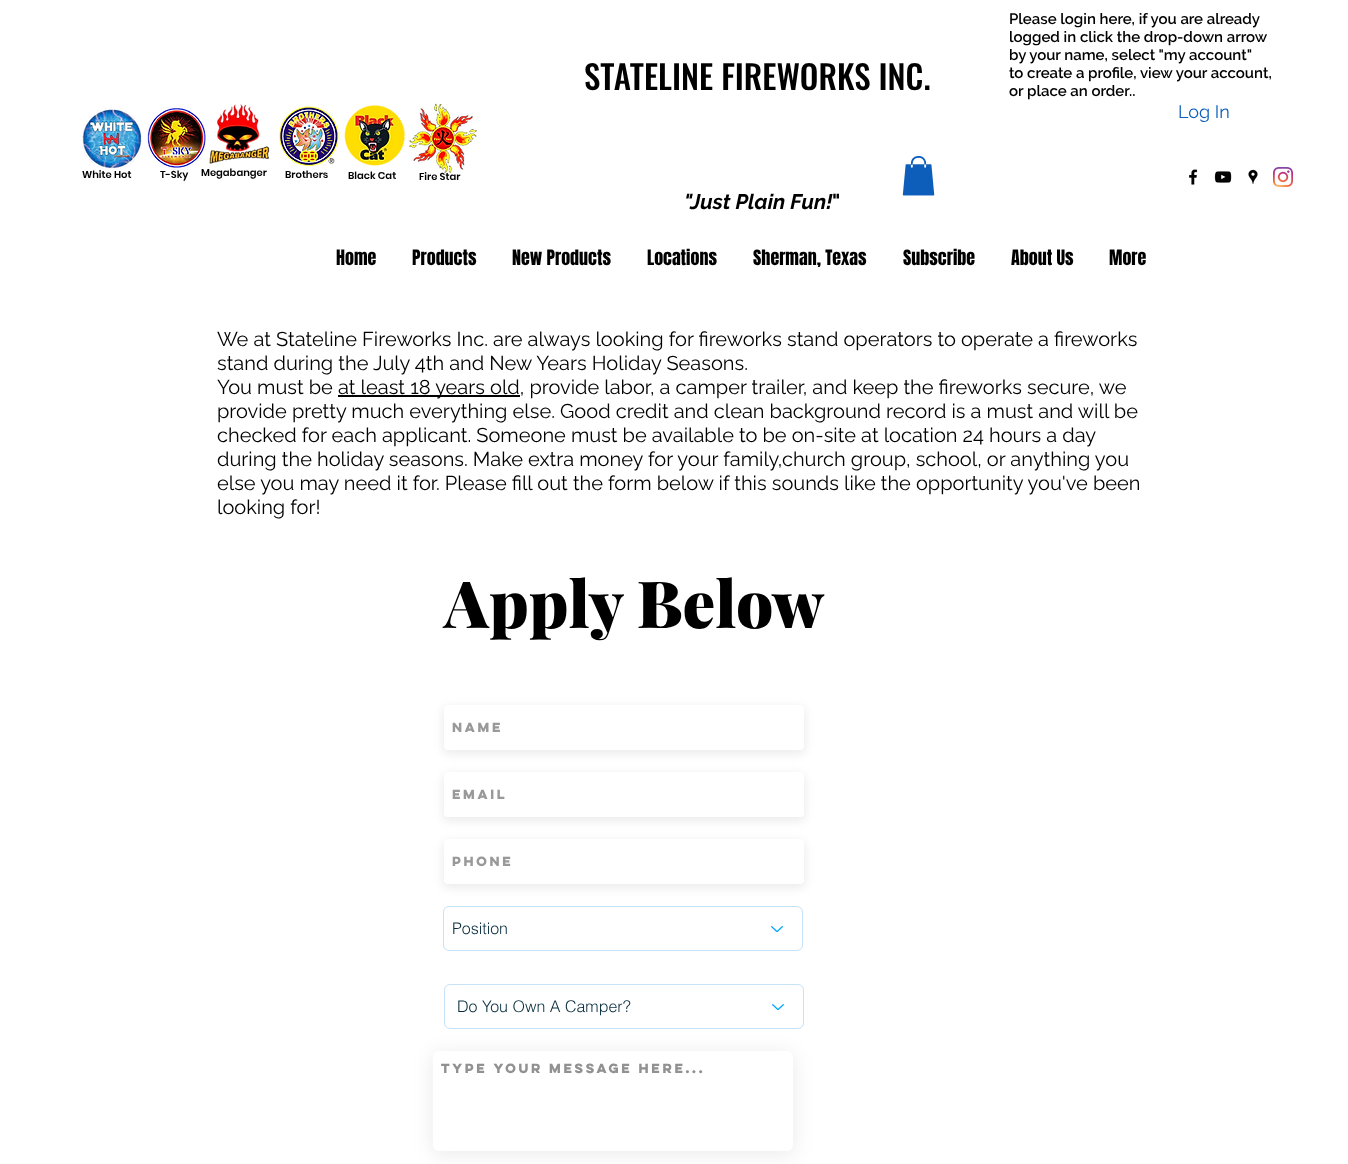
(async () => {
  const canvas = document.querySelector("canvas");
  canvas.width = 1348;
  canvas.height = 1164;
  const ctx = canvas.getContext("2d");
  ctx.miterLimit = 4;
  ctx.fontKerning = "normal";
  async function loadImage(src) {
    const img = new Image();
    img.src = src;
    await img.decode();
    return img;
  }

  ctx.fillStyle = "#ffffff";
  ctx.fillRect(0, 0, 1348, 1164);
  ctx.drawImage(await loadImage("img/1.png"), 82, 103, 395, 70);
  ctx.drawImage(await loadImage("img/2.png"), 902, 156, 33, 40);
  ctx.drawImage(await loadImage("img/3.png"), 1189, 169, 9, 16);
  ctx.drawImage(await loadImage("img/4.png"), 1214, 171, 18, 12);
  ctx.drawImage(await loadImage("img/5.png"), 1248, 169, 10, 15);
  ctx.drawImage(await loadImage("img/6.png"), 1273, 167, 20, 20);
  ctx.fillStyle = "#000000";
  ctx.fillRect(338, 395, 182, 2);
  ctx.fillStyle = "rgba(0, 0, 0, 0.08)";
  ctx.filter = "blur(5px)";
  ctx.beginPath();
  ctx.roundRect(443, 707, 362, 47, 5);
  ctx.fill();
  ctx.filter = "none";
  ctx.fillStyle = "#ffffff";
  ctx.beginPath();
  ctx.roundRect(444, 705, 360, 45, 4);
  ctx.fill();
  ctx.fillStyle = "rgba(0, 0, 0, 0.08)";
  ctx.filter = "blur(5px)";
  ctx.beginPath();
  ctx.roundRect(443, 774, 362, 47, 5);
  ctx.fill();
  ctx.filter = "none";
  ctx.fillStyle = "#ffffff";
  ctx.beginPath();
  ctx.roundRect(444, 772, 360, 45, 4);
  ctx.fill();
  ctx.fillStyle = "rgba(0, 0, 0, 0.08)";
  ctx.filter = "blur(5px)";
  ctx.beginPath();
  ctx.roundRect(443, 841, 362, 47, 5);
  ctx.fill();
  ctx.filter = "none";
  ctx.fillStyle = "#ffffff";
  ctx.beginPath();
  ctx.roundRect(444, 839, 360, 45, 4);
  ctx.fill();
  ctx.beginPath();
  ctx.roundRect(443.5, 906.5, 359, 44, 5.5);
  ctx.strokeStyle = "#c6e2f7";
  ctx.stroke();
  ctx.drawImage(await loadImage("img/7.png"), 771, 926, 12, 6);
  ctx.beginPath();
  ctx.roundRect(444.5, 984.5, 359, 44, 5.5);
  ctx.stroke();
  ctx.drawImage(await loadImage("img/7.png"), 772, 1004, 12, 6);
  ctx.fillStyle = "rgba(0, 0, 0, 0.08)";
  ctx.filter = "blur(9.5px)";
  ctx.beginPath();
  ctx.roundRect(432, 1053, 362, 102, 7);
  ctx.fill();
  ctx.filter = "none";
  ctx.fillStyle = "#ffffff";
  ctx.beginPath();
  ctx.roundRect(433, 1051, 360, 100, 6);
  ctx.fill();
  ctx.font = "500 33px Oswald";
  ctx.fillStyle = "#000000";
  ctx.fillText("STATELINE FIREWORKS INC.", 584, 90);
  ctx.font = "600 10px Poppins";
  for (const [text, x, y] of [
    ["White Hot", 82, 178],
    ["T-Sky", 160, 178],
    ["Megabanger", 201, 176],
    ["Brothers", 285, 178],
    ["Black Cat", 348, 179],
    ["Fire Star", 419, 180],
  ]) {
    ctx.fillText(text, x, y);
  }
  ctx.font = "italic bold 21px Raleway";
  ctx.fillText("\"Just Plain Fun!", 684, 209);
  ctx.font = "bold 21px Raleway";
  ctx.fillText("\"", 832, 209);
  ctx.font = "600 15px Raleway";
  for (const [text, x, y] of [
    ["Please login here, if you are already", 1009, 24],
    ["logged in click the drop-down arrow", 1009, 42],
    ["by your name, select \"my account\"", 1009, 60],
    ["to create a profile, view your account,", 1009, 78],
    ["or place an order..", 1009, 96],
  ]) {
    ctx.fillText(text, x, y);
  }
  ctx.font = "18px Raleway";
  ctx.fillStyle = "#0d5eba";
  ctx.fillText("Log In", 1178, 118);
  ctx.font = "18px Anton";
  ctx.fillStyle = "#000000";
  for (const [text, x, y] of [
    ["Home", 336, 265],
    ["Products", 412, 265],
    ["New Products", 512, 265],
    ["Locations", 647, 265],
    ["Sherman, Texas", 753, 265],
    ["Subscribe", 903, 265],
    ["About Us", 1011, 265],
    ["More", 1109, 265],
  ]) {
    ctx.fillText(text, x, y);
  }
  ctx.font = "20px Raleway";
  for (const [text, x, y] of [
    ["We at Stateline Fireworks Inc. are always looking for fireworks stand operators to operate a fireworks", 217, 346],
    ["stand during the July 4th and New Years Holiday Seasons.", 217, 370],
    ["You must be", 217, 394],
    ["at least 18 years old, provide labor, a camper trailer, and keep the fireworks secure, we", 338, 394],
    ["provide pretty much everything else. Good credit and clean background record is a must and will be", 217, 418],
    ["checked for each applicant. Someone must be available to be on-site at location 24 hours a day", 217, 442],
    ["during the holiday seasons. Make extra money for your family,church group, school, or anything you", 217, 466],
    ["else you may need it for. Please fill out the form below if this sounds like the opportunity you've been", 217, 490],
    ["looking for!", 217, 514],
  ]) {
    ctx.fillText(text, x, y);
  }
  ctx.font = "900 65px Playfair Display";
  ctx.fillText("Apply Below", 444, 628);
  ctx.font = "bold 12px 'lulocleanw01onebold'";
  ctx.fillStyle = "#999999";
  for (const [text, x, y] of [
    ["Name", 452, 732],
    ["Email", 452, 799],
    ["Phone", 452, 866],
  ]) {
    ctx.fillText(text, x, y);
  }
  ctx.font = "300 16px helvetica";
  ctx.fillStyle = "#072d3e";
  ctx.fillText("Position", 452, 934);
  ctx.fillText("Do You Own A Camper?", 457, 1012);
  ctx.font = "bold 12px 'lulocleanw01onebold'";
  ctx.fillStyle = "#919191";
  ctx.fillText("Type your message here...", 441, 1073);
})();
